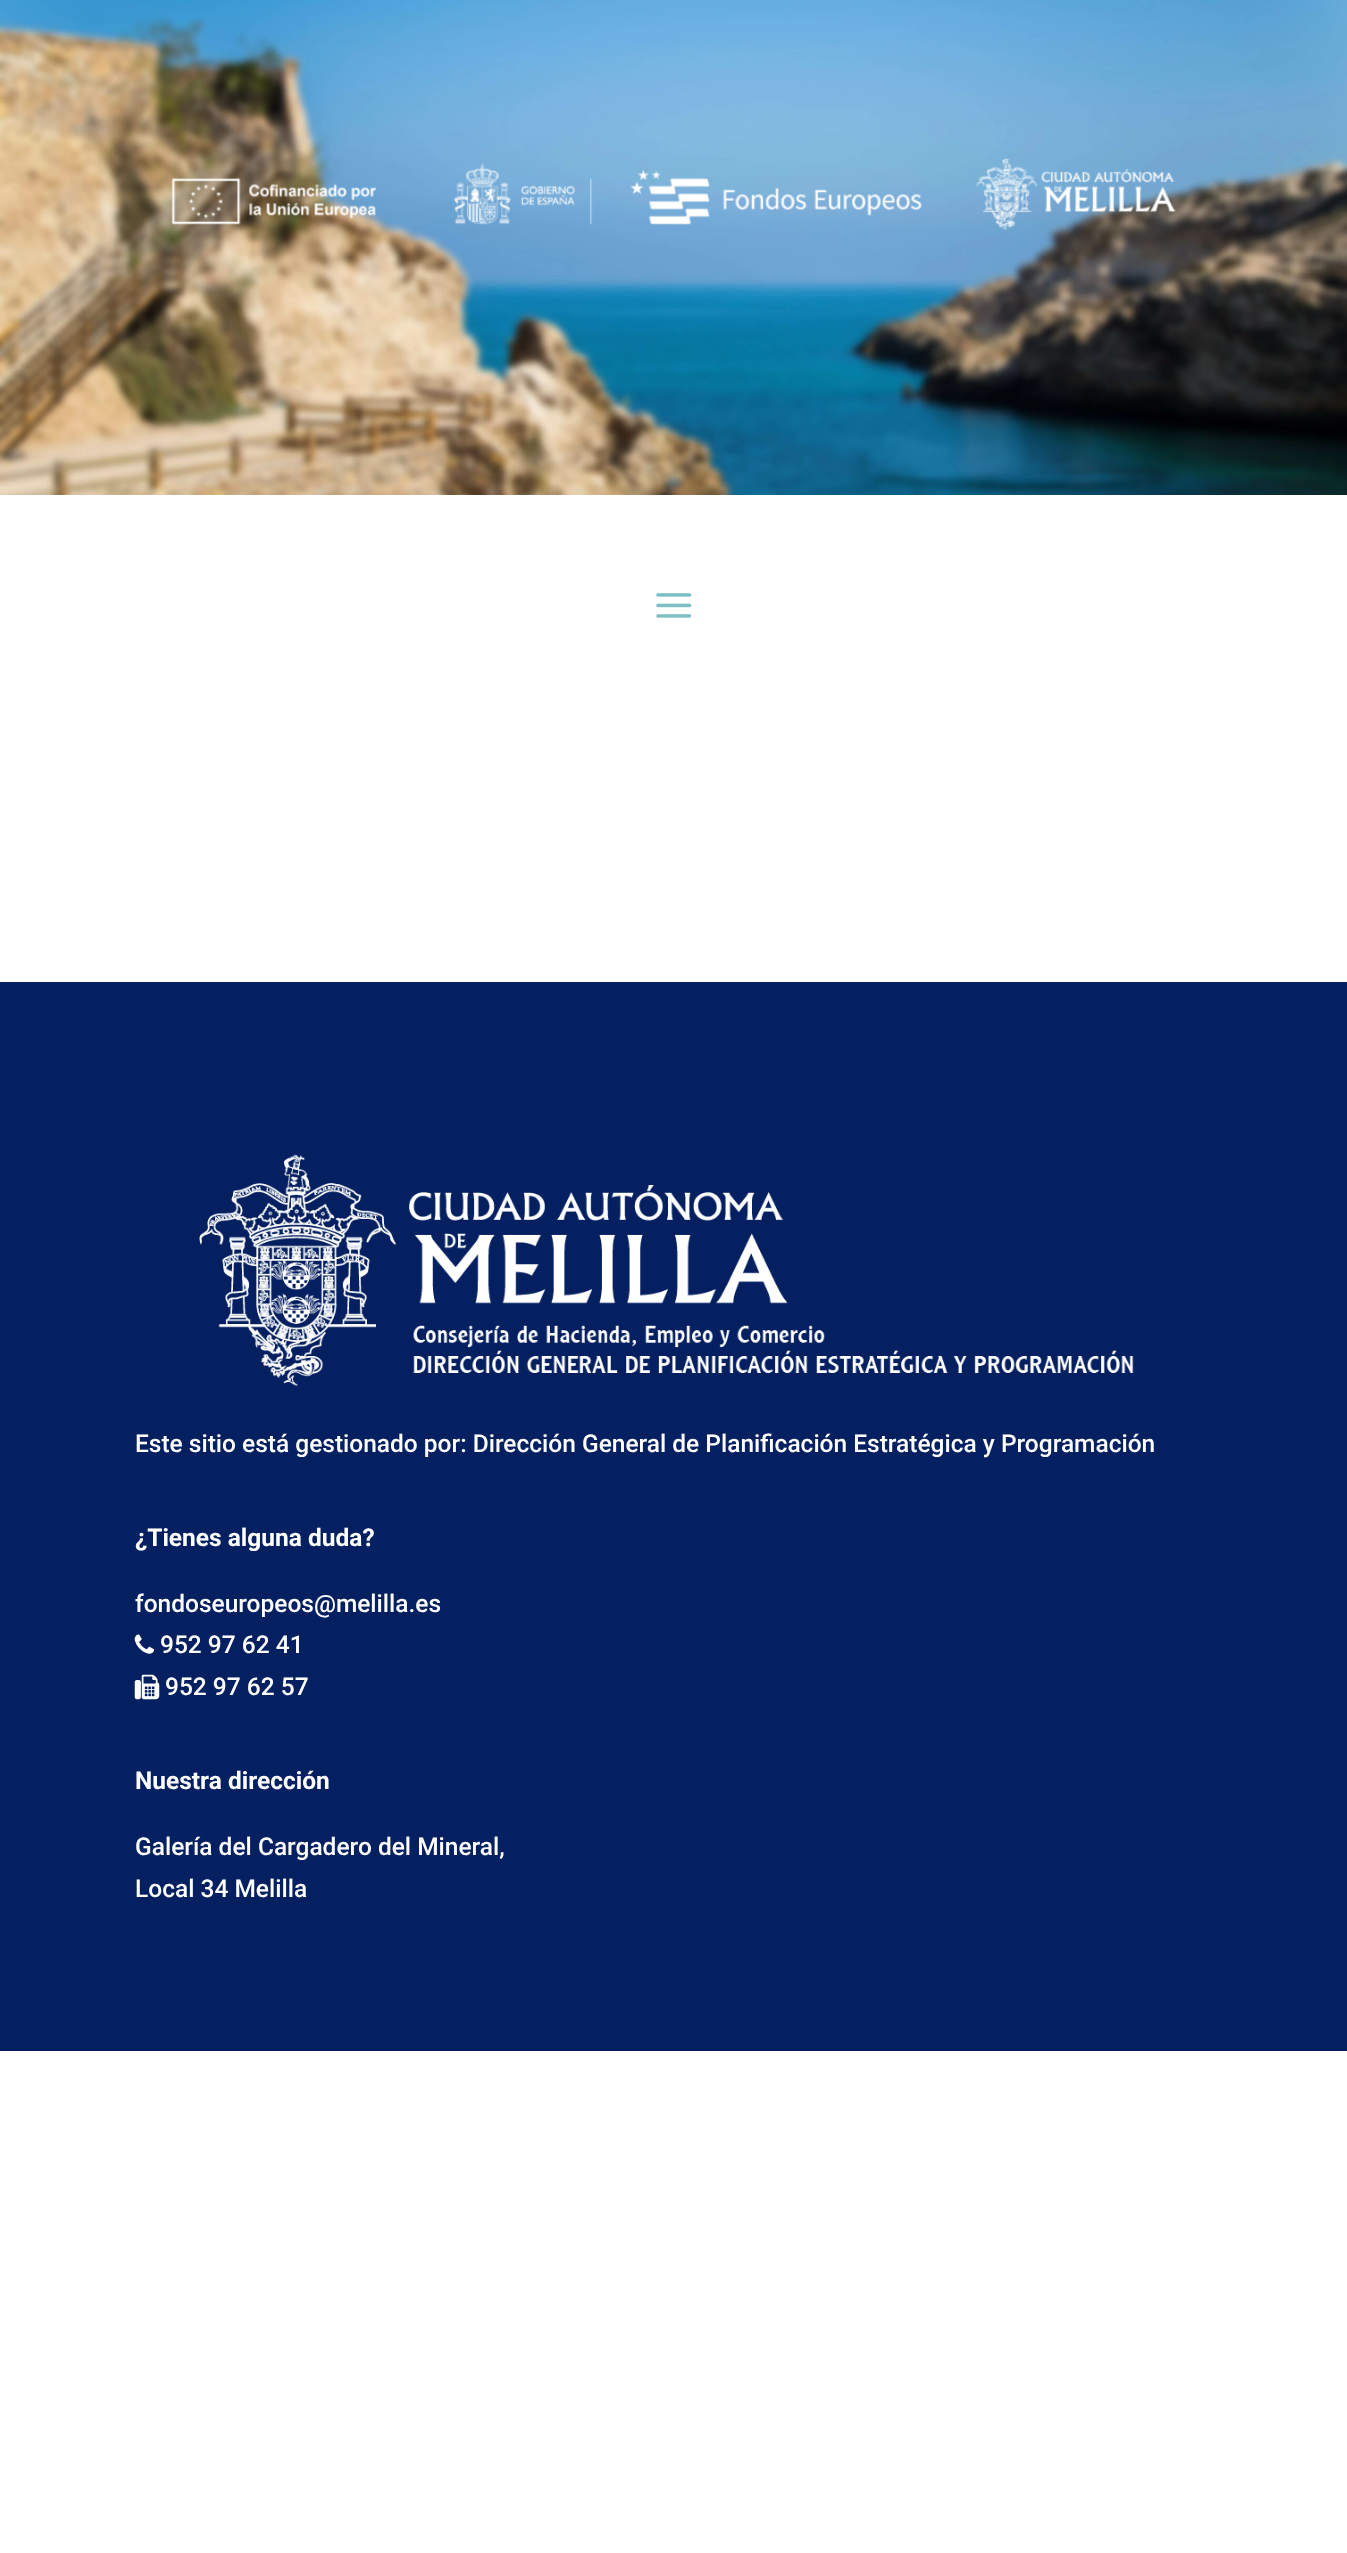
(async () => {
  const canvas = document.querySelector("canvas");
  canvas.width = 1347;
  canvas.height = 2553;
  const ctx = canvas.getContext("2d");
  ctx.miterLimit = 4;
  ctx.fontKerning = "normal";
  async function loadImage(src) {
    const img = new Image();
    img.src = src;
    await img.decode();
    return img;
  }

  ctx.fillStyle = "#ffffff";
  ctx.fillRect(0, 0, 1347, 2553);
  ctx.drawImage(await loadImage("img/1.png"), 0, 0, 1347, 495);
  ctx.drawImage(await loadImage("img/2.png"), 171, 158, 1005, 73);
  ctx.drawImage(await loadImage("img/3.png"), 656, 593, 36, 25);
  ctx.fillStyle = "#052061";
  ctx.fillRect(0, 982, 1347, 1069);
  ctx.drawImage(await loadImage("img/4.png"), 199, 1154, 935, 232);
  ctx.drawImage(await loadImage("img/5.png"), 134, 1634, 20, 20);
  ctx.drawImage(await loadImage("img/6.png"), 134, 1674, 26, 26);
  ctx.font = "500 24.5px Roboto";
  ctx.fillStyle = "#ffffff";
  ctx.fillText("Este sitio está gestionado por: Dirección General de Planificación Estratégica y Programación", 135, 1452);
  ctx.font = "bold 24.5px Roboto";
  ctx.fillText("¿Tienes alguna duda?", 135, 1546);
  ctx.font = "500 24.5px Roboto";
  for (const [text, x, y] of [
    ["fondoseuropeos@melilla.es", 135, 1612],
    ["952 97 62 41", 160, 1653],
    ["952 97 62 57", 165, 1695],
  ]) {
    ctx.fillText(text, x, y);
  }
  ctx.font = "bold 24.5px Roboto";
  ctx.fillText("Nuestra dirección", 135, 1789);
  ctx.font = "500 24.5px Roboto";
  ctx.fillText("Galería del Cargadero del Mineral,", 135, 1855);
  ctx.fillText("Local 34 Melilla", 135, 1897);
})();
